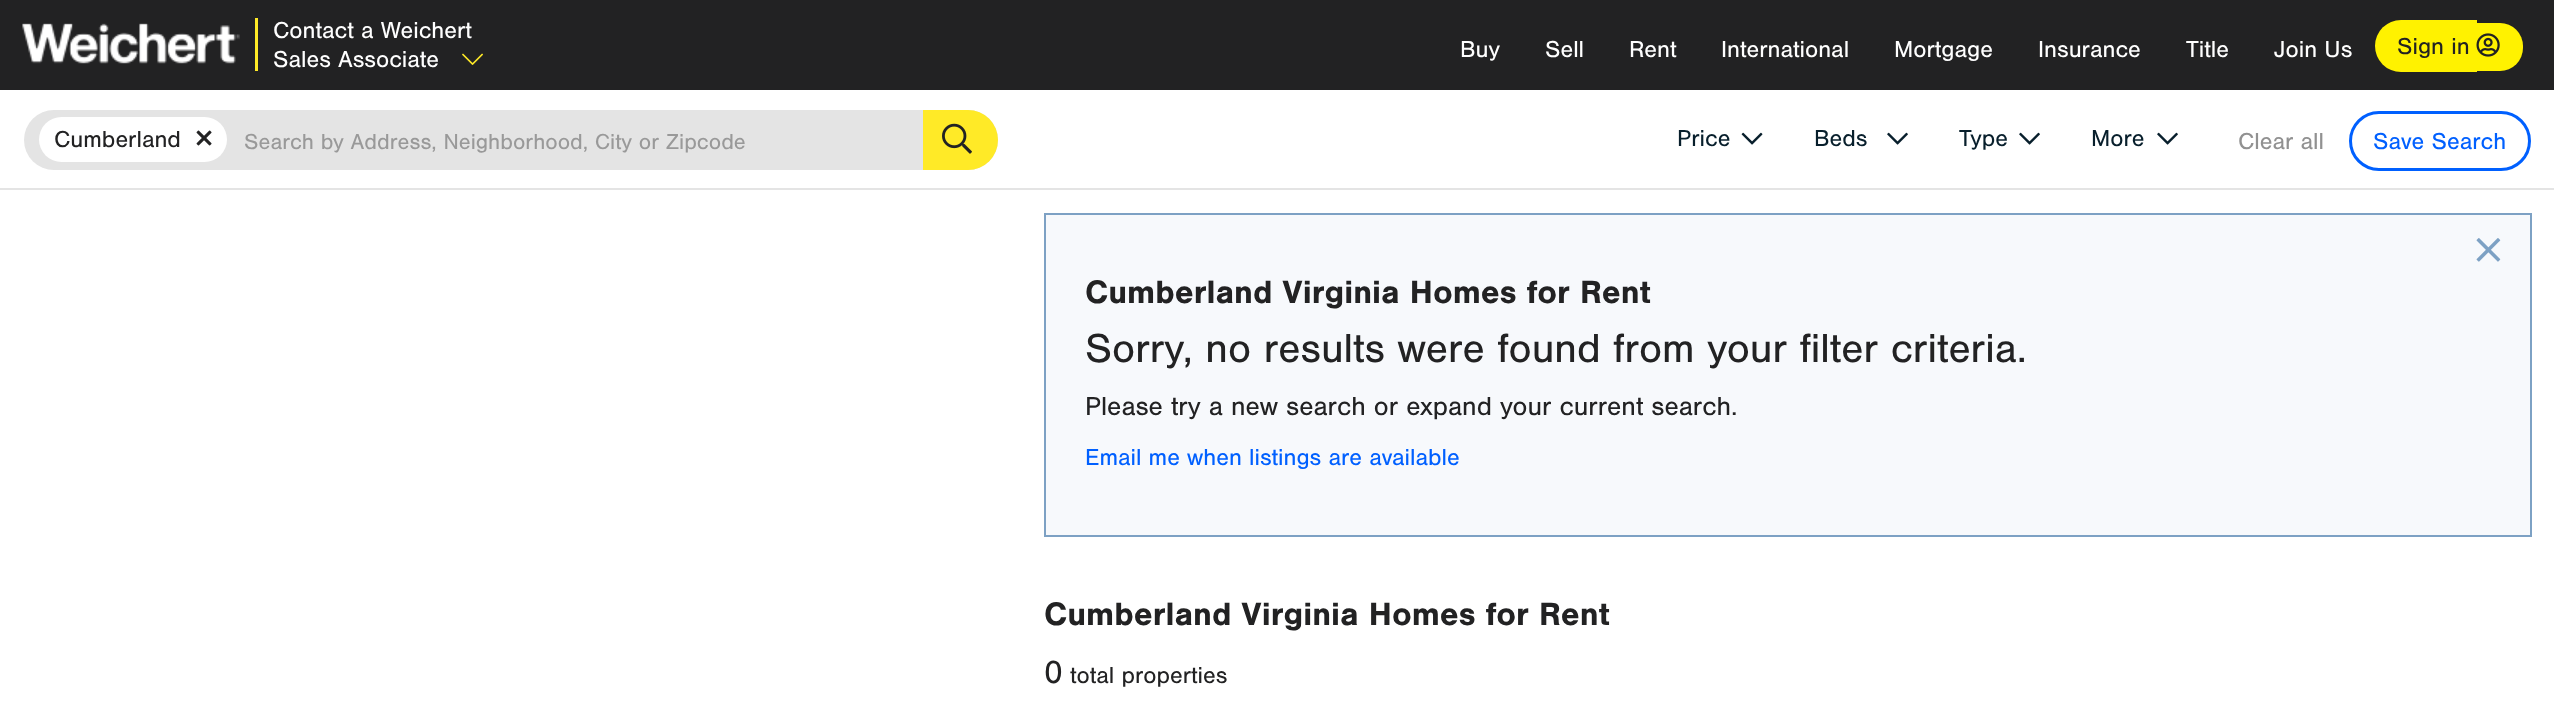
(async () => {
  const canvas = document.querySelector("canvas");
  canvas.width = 2554;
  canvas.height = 717;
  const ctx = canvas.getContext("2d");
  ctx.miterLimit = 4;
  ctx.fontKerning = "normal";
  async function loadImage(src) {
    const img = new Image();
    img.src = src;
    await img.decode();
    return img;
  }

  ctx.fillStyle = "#ffffff";
  ctx.fillRect(0, 0, 2554, 717);
  ctx.fillStyle = "#222223";
  ctx.fillRect(0, 0, 2554, 90);
  ctx.drawImage(await loadImage("img/1.png"), 22, 23, 218, 41);
  ctx.fillStyle = "#ffea27";
  ctx.fillRect(255, 18, 3, 53);
  ctx.drawImage(await loadImage("img/2.png"), 462, 53, 21, 12);
  ctx.fillStyle = "#fff200";
  ctx.beginPath();
  ctx.roundRect(2375, 20, 102, 52, [26, 0, 0, 26]);
  ctx.fill();
  ctx.beginPath();
  ctx.roundRect(2477, 23, 46, 48, [0, 23, 23, 0]);
  ctx.fill();
  ctx.drawImage(await loadImage("img/3.png"), 2476, 33, 24, 24);
  ctx.fillStyle = "#e4e4e4";
  ctx.fillRect(0, 188, 2554, 2);
  ctx.beginPath();
  ctx.roundRect(24, 110, 974, 60, 30);
  ctx.fill();
  ctx.fillStyle = "#ffffff";
  ctx.beginPath();
  ctx.roundRect(39, 117, 188, 45, 22.5);
  ctx.fill();
  ctx.drawImage(await loadImage("img/4.png"), 196, 130, 16, 16);
  ctx.fillStyle = "#ffea27";
  ctx.beginPath();
  ctx.roundRect(923, 110, 75, 60, [0, 30, 30, 0]);
  ctx.fill();
  ctx.drawImage(await loadImage("img/5.png"), 942, 123, 30, 31);
  ctx.drawImage(await loadImage("img/6.png"), 1741, 132, 22, 13);
  ctx.drawImage(await loadImage("img/7.png"), 1887, 132, 21, 13);
  ctx.drawImage(await loadImage("img/7.png"), 2019, 132, 21, 13);
  ctx.drawImage(await loadImage("img/7.png"), 2157, 132, 21, 13);
  ctx.beginPath();
  ctx.roundRect(2350.5, 112.5, 179, 57, 28.5);
  ctx.strokeStyle = "#0060ff";
  ctx.lineWidth = 3;
  ctx.stroke();
  ctx.fillStyle = "#f7f9fc";
  ctx.beginPath();
  ctx.rect(1045, 214, 1486, 322);
  ctx.fill();
  ctx.strokeStyle = "#7da1c4";
  ctx.lineWidth = 2;
  ctx.stroke();
  ctx.drawImage(await loadImage("img/8.png"), 2476, 238, 25, 24);
  ctx.font = "24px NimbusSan";
  ctx.fillStyle = "#ffffff";
  for (const [text, x, y] of [
    ["Contact a Weichert", 273, 38],
    ["Sales Associate", 273, 67],
    ["Buy", 1460, 57],
    ["Sell", 1545, 57],
    ["Rent", 1629, 57],
    ["International", 1721, 57],
    ["Mortgage", 1894, 57],
    ["Insurance", 2038, 57],
    ["Title", 2186, 57],
    ["Join Us", 2274, 57],
  ]) {
    ctx.fillText(text, x, y);
  }
  ctx.fillStyle = "#222223";
  ctx.fillText("Sign in", 2397, 54);
  ctx.fillText("Cumberland", 54, 147);
  ctx.font = "22.5px NimbusSan";
  ctx.fillStyle = "#999999";
  ctx.fillText("Search by Address, Neighborhood, City or Zipcode", 244, 149);
  ctx.font = "24px NimbusSan";
  ctx.fillStyle = "#081f2c";
  for (const [text, x, y] of [
    ["Price", 1677, 146],
    ["Beds", 1814, 146],
    ["Type", 1959, 146],
    ["More", 2091, 146],
  ]) {
    ctx.fillText(text, x, y);
  }
  ctx.fillStyle = "#919191";
  ctx.fillText("Clear all", 2238, 149);
  ctx.fillStyle = "#0060ff";
  ctx.fillText("Save Search", 2373, 149);
  ctx.font = "bold 33.6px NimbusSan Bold";
  ctx.fillStyle = "#222223";
  ctx.fillText("Cumberland Virginia Homes for Rent", 1085, 303);
  ctx.font = "42px NimbusSan";
  ctx.fillText("Sorry, no results were found from your filter criteria.", 1085, 362);
  ctx.font = "27px NimbusSan";
  ctx.fillText("Please try a new search or expand your current search.", 1085, 415);
  ctx.font = "24px NimbusSan";
  ctx.fillStyle = "#0060ff";
  ctx.fillText("Email me when listings are available", 1085, 465);
  ctx.font = "bold 33.6px NimbusSan Bold";
  ctx.fillStyle = "#222223";
  ctx.fillText("Cumberland Virginia Homes for Rent", 1044, 625);
  ctx.font = "33.6px NimbusSan";
  ctx.fillText("0", 1044, 683);
  ctx.font = "24px NimbusSan";
  ctx.fillText("total properties", 1070, 683);
})();
